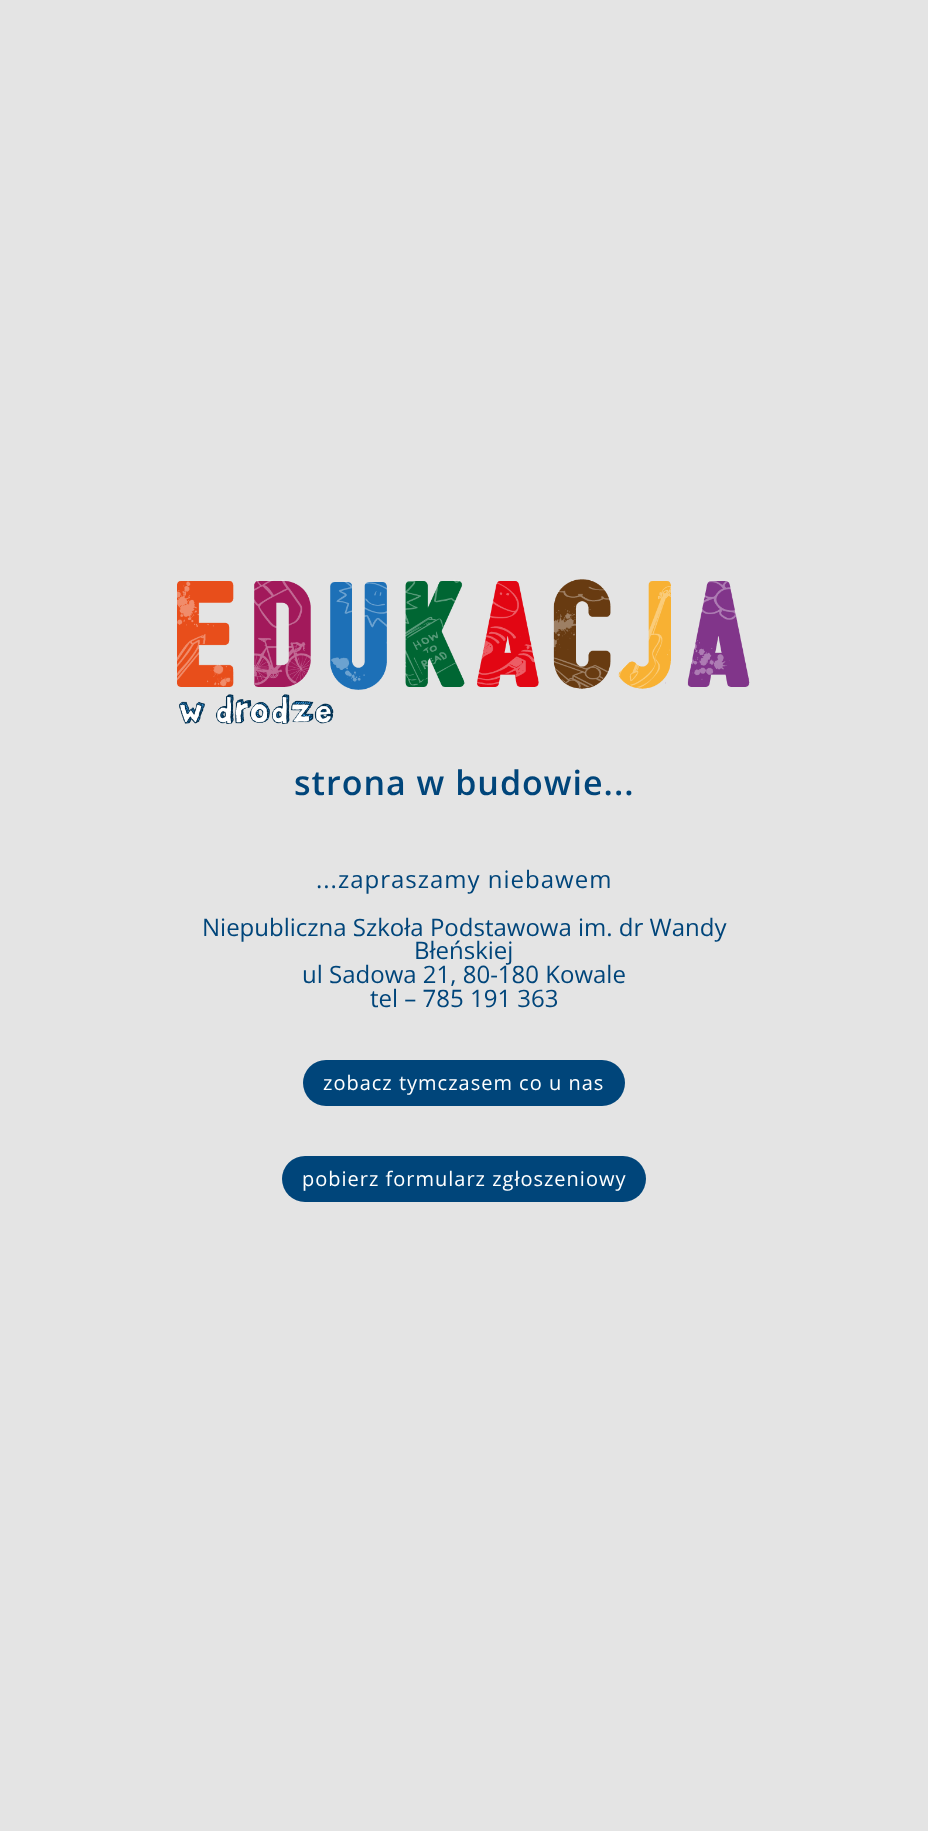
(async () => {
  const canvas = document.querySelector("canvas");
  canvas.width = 928;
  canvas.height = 1831;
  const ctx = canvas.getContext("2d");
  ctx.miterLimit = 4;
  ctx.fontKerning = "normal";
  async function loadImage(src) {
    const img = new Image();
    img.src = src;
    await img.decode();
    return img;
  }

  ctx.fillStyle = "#e4e4e4";
  ctx.fillRect(0, 0, 928, 1831);
  ctx.drawImage(await loadImage("img/1.png"), 177, 579, 573, 145);
  ctx.fillStyle = "#00457a";
  ctx.beginPath();
  ctx.roundRect(303, 1060, 322, 46, 23);
  ctx.fill();
  ctx.beginPath();
  ctx.roundRect(282, 1156, 364, 46, 23);
  ctx.fill();
  ctx.letterSpacing = "1px";
  ctx.font = "600 34px Open Sans";
  ctx.fillText("strona w budowie...", 294, 795);
  ctx.font = "24px Open Sans";
  ctx.fillText("...zapraszamy niebawem", 316, 888);
  ctx.letterSpacing = "0px";
  for (const [text, x, y] of [
    ["Niepubliczna Szkoła Podstawowa im. dr Wandy", 202, 936],
    ["Błeńskiej", 414, 959],
    ["ul Sadowa 21, 80-180 Kowale", 302, 983],
    ["tel – 785 191 363", 370, 1007],
  ]) {
    ctx.fillText(text, x, y);
  }
  ctx.letterSpacing = "1px";
  ctx.font = "20px Open Sans";
  ctx.fillStyle = "#ffffff";
  ctx.fillText("zobacz tymczasem co u nas", 323, 1090);
  ctx.fillText("pobierz formularz zgłoszeniowy", 302, 1186);
})();
